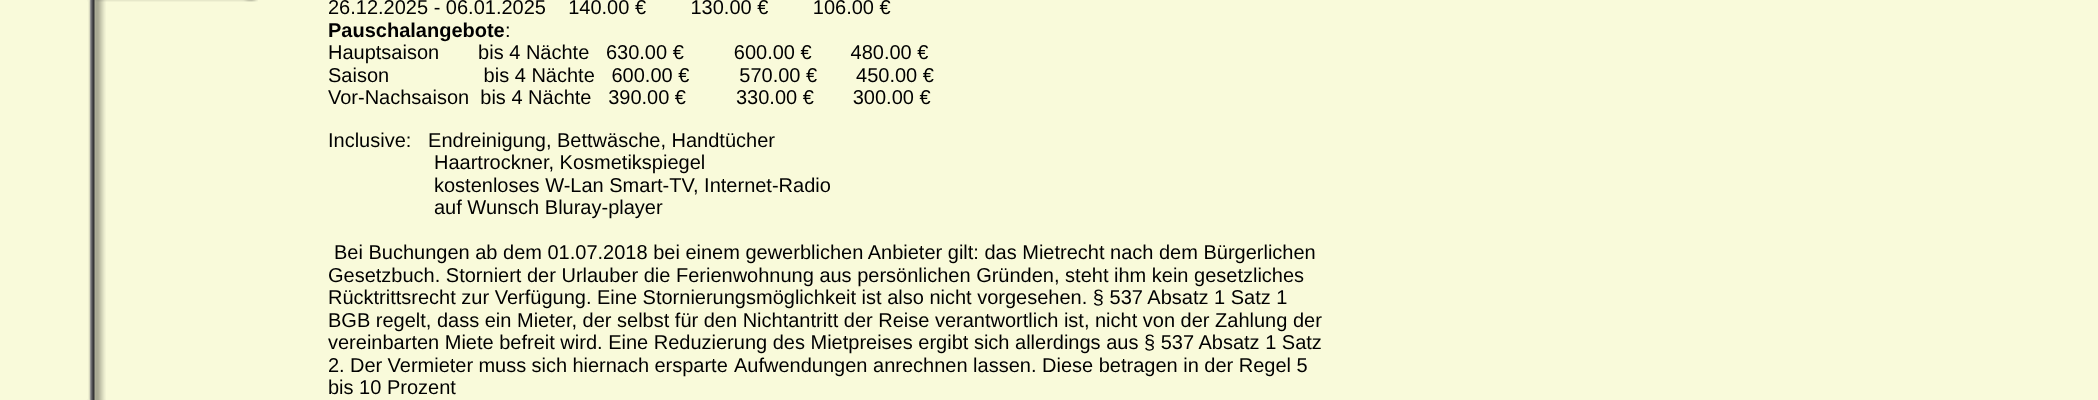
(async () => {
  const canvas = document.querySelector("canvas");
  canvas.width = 2098;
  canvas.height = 400;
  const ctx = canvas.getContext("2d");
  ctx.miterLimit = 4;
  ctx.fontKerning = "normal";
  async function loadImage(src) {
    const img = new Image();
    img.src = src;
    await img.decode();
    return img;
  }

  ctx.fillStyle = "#f9fada";
  ctx.fillRect(0, 0, 2098, 400);
  ctx.drawImage(await loadImage("img/1.png"), 88, 1, 18, 398);
  ctx.drawImage(await loadImage("img/2.png"), 87, 0, 171, 2);
  ctx.drawImage(await loadImage("img/3.png"), 87, 399, 19, 1);
  ctx.font = "20px Liberation Sans";
  ctx.fillStyle = "#000000";
  ctx.fillText("26.12.2025 - 06.01.2025    140.00 €        130.00 €        106.00 €", 328, 14);
  ctx.font = "bold 20px Liberation Sans";
  ctx.fillText("Pauschalangebote", 328, 37);
  ctx.font = "20px Liberation Sans";
  for (const [text, x, y] of [
    [":", 505, 37],
    ["Hauptsaison       bis 4 Nächte   630.00 €         600.00 €       480.00 €", 328, 59],
    ["Saison                 bis 4 Nächte   600.00 €         570.00 €       450.00 €", 328, 82],
    ["Vor-Nachsaison  bis 4 Nächte   390.00 €         330.00 €       300.00 €", 328, 104],
    ["Inclusive:   Endreinigung, Bettwäsche, Handtücher", 328, 147],
    ["Haartrockner, Kosmetikspiegel", 434, 169],
    ["kostenloses W-Lan Smart-TV, Internet-Radio", 434, 192],
    ["auf Wunsch Bluray-player", 434, 214],
    ["Bei Buchungen ab dem 01.07.2018 bei einem gewerblichen Anbieter gilt: das Mietrecht nach dem Bürgerlichen", 334, 259],
    ["Gesetzbuch. Storniert der Urlauber die Ferienwohnung aus persönlichen Gründen, steht ihm kein gesetzliches", 328, 282],
    ["Rücktrittsrecht zur Verfügung. Eine Stornierungsmöglichkeit ist also nicht vorgesehen. § 537 Absatz 1 Satz 1", 328, 304],
    ["BGB regelt, dass ein Mieter, der selbst für den Nichtantritt der Reise verantwortlich ist, nicht von der Zahlung der", 328, 327],
    ["vereinbarten Miete befreit wird. Eine Reduzierung des Mietpreises ergibt sich allerdings aus § 537 Absatz 1 Satz", 328, 349],
  ]) {
    ctx.fillText(text, x, y);
  }
  ctx.wordSpacing = "-0.25px";
  ctx.fillText("2. Der Vermieter muss sich hiernach ersparte", 328, 372);
  ctx.wordSpacing = "0px";
  ctx.fillText("Aufwendungen anrechnen lassen. Diese betragen in der Regel 5", 734, 372);
  ctx.fillText("bis 10 Prozent", 328, 394);
})();
